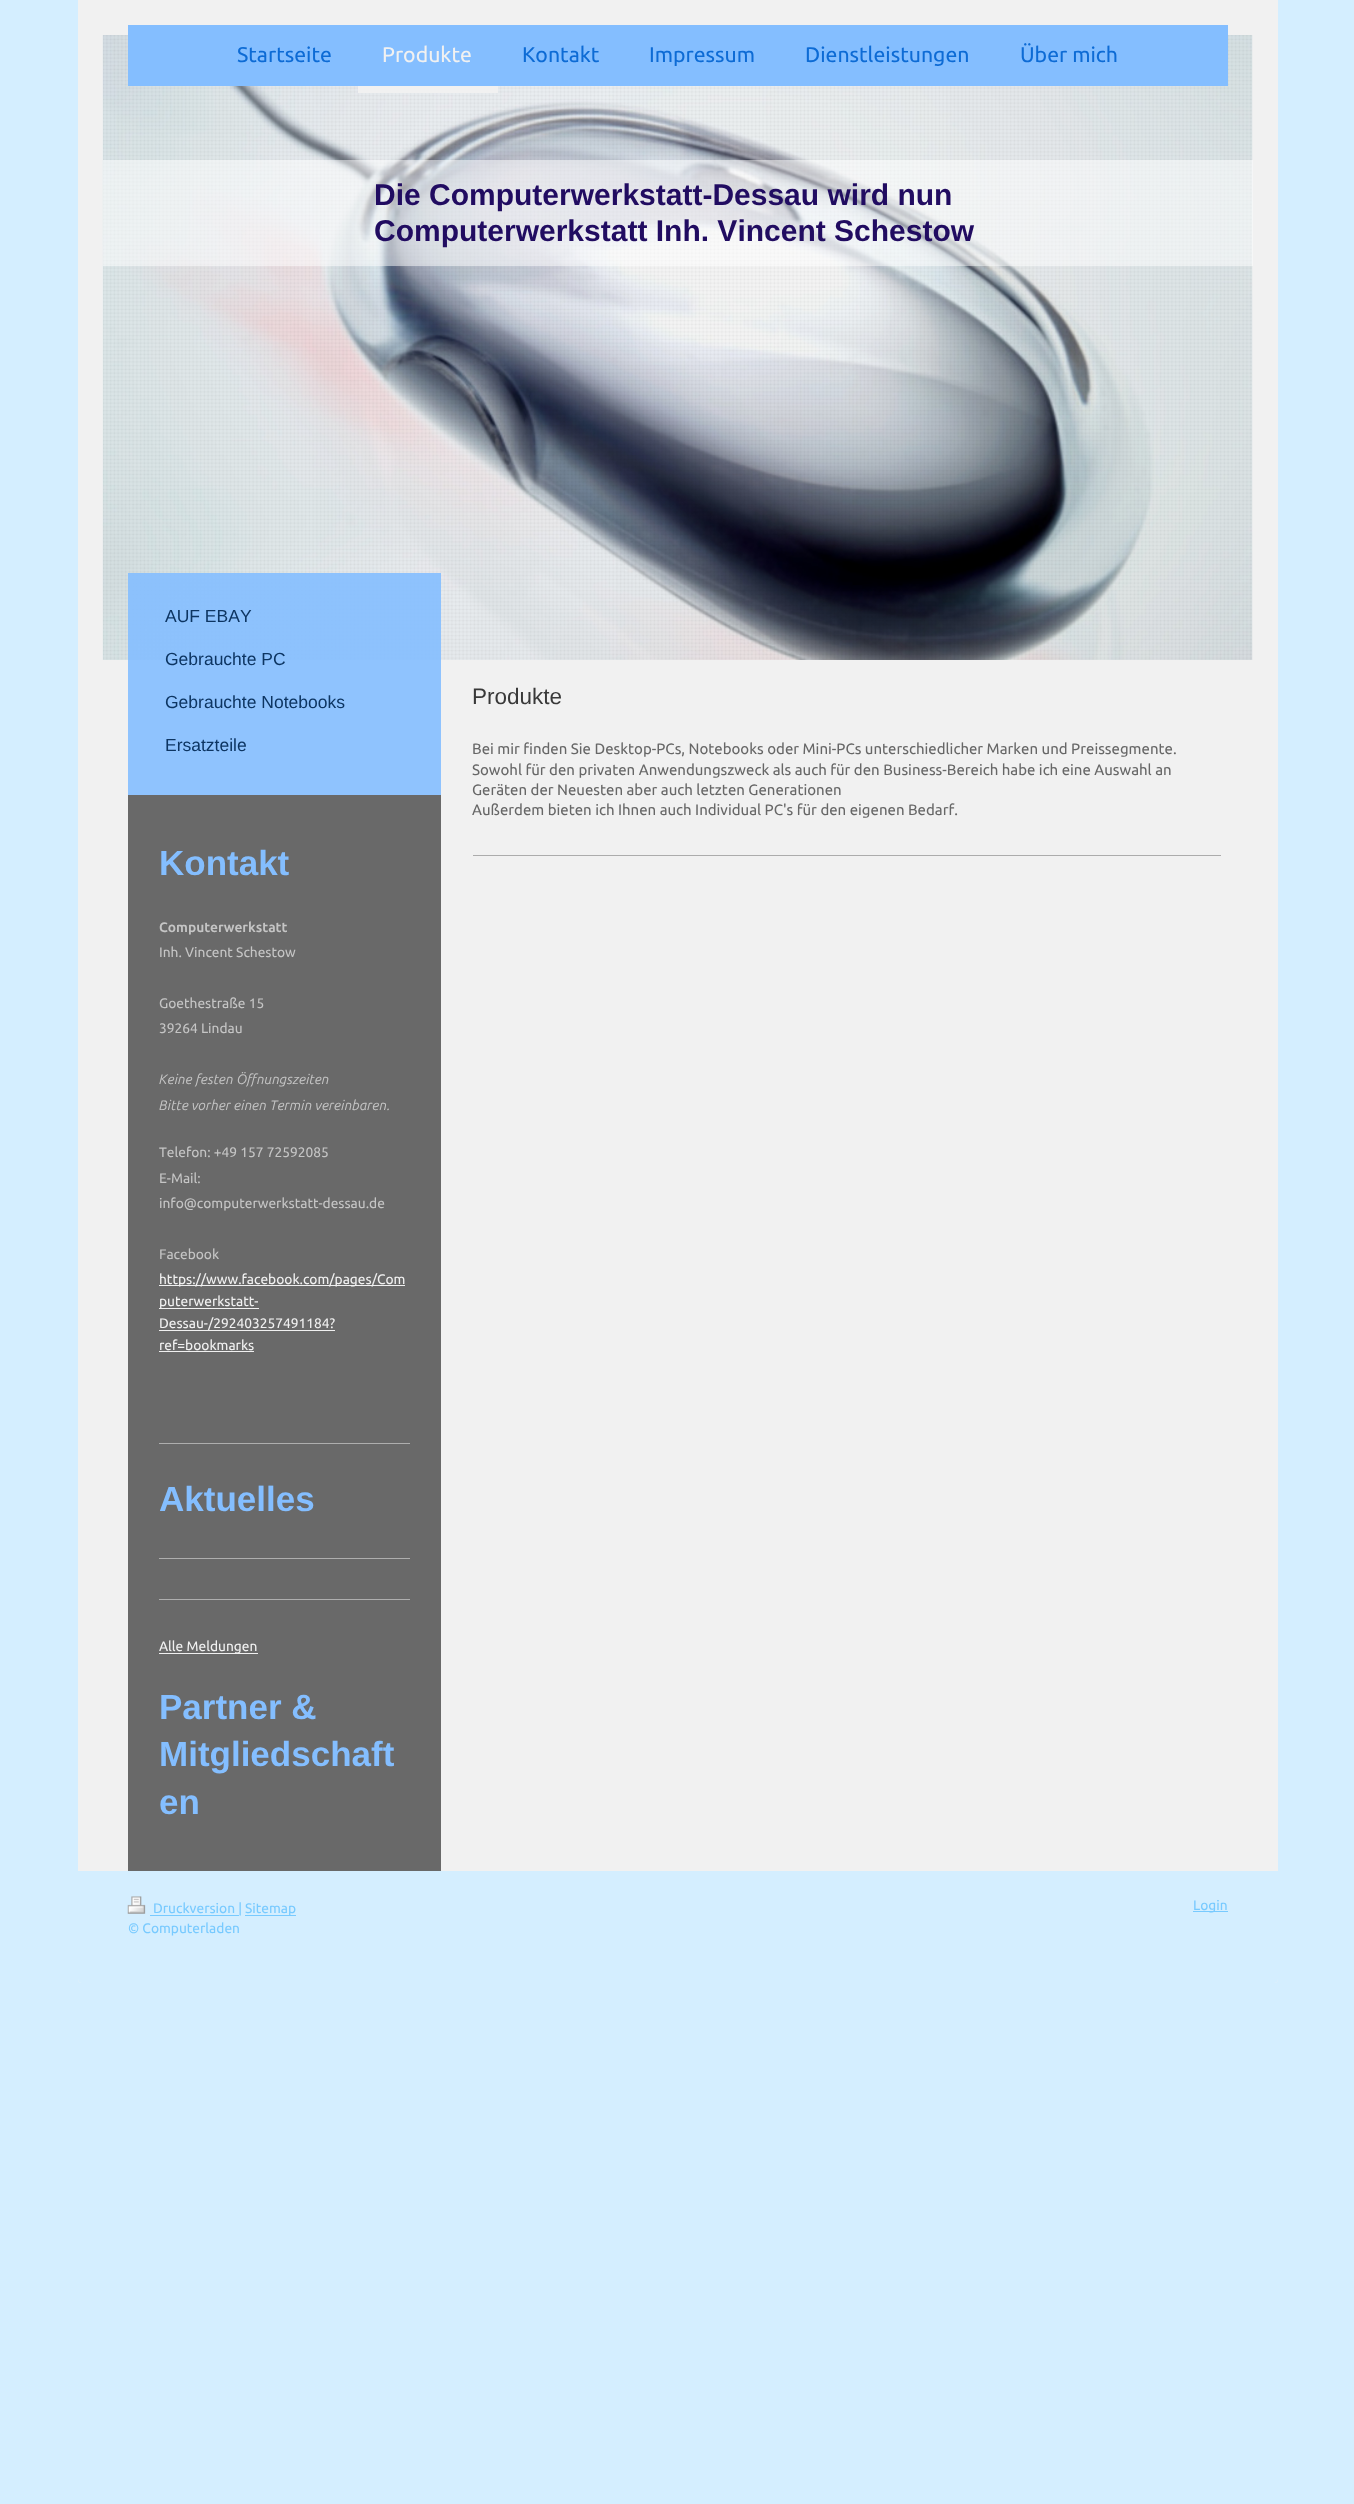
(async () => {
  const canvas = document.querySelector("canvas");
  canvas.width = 1354;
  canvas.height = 2504;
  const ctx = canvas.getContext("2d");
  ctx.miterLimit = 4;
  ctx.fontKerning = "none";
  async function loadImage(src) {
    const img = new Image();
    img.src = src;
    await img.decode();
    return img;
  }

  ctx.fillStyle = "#d4eeff";
  ctx.fillRect(0, 0, 1354, 2504);
  ctx.fillStyle = "#f1f1f1";
  ctx.beginPath();
  ctx.roundRect(78, 0, 1200, 1983, [0, 0, 4, 4]);
  ctx.fill();
  ctx.fillStyle = "#eeeeee";
  ctx.fillRect(1252, 35, 1, 625);
  ctx.drawImage(await loadImage("img/1.png"), 102, 35, 1151, 625);
  ctx.drawImage(await loadImage("img/2.png"), 103, 35, 1149, 625);
  for (const [x, y, w, h, color] of [
    [128, 25, 1100, 61, "#84beff"],
    [358, 86, 140, 7, "#f1f1f1"],
    [103, 160, 1150, 106, "rgba(255, 255, 255, 0.5)"],
    [128, 573, 313, 222, "rgba(132, 190, 255, 0.9)"],
    [128, 795, 313, 1076, "#696969"],
    [159, 1285, 246, 1, "#f0f0f0"],
    [159, 1308, 100, 1, "#f0f0f0"],
    [159, 1330, 176, 1, "#f0f0f0"],
    [159, 1351, 95, 1, "#f0f0f0"],
    [159, 1443, 251, 1, "#aeaeae"],
    [159, 1558, 251, 1, "#aeaeae"],
    [159, 1599, 251, 1, "#aeaeae"],
    [159, 1653, 99, 1, "#f0f0f0"],
    [473, 855, 748, 1, "#acacac"],
  ]) {
    ctx.fillStyle = color;
    ctx.fillRect(x, y, w, h);
  }
  ctx.fillStyle = "#d4eeff";
  ctx.beginPath();
  ctx.roundRect(78, 1871, 1200, 112, [0, 0, 4, 4]);
  ctx.fill();
  ctx.drawImage(await loadImage("img/3.png"), 127, 1896, 19, 18);
  for (const [x, y, w, h, color] of [
    [150, 1915, 89, 1, "#78caff"],
    [245, 1915, 51, 1, "#78caff"],
    [1193, 1911, 35, 1, "#78caff"],
  ]) {
    ctx.fillStyle = color;
    ctx.fillRect(x, y, w, h);
  }
  ctx.font = "21.25px Ubuntu";
  ctx.fillStyle = "#0d6bd5";
  ctx.fillText("Startseite", 237, 62);
  ctx.fillStyle = "#f1f1f1";
  ctx.fillText("Produkte", 382, 62);
  ctx.fillStyle = "#0d6bd5";
  for (const [text, x, y] of [
    ["Kontakt", 522, 62],
    ["Impressum", 649, 62],
    ["Dienstleistungen", 805, 62],
    ["Über mich", 1020, 62],
  ]) {
    ctx.fillText(text, x, y);
  }
  ctx.font = "bold 30px Liberation Sans";
  ctx.fillStyle = "#210c61";
  ctx.fillText("Die Computerwerkstatt-Dessau wird nun", 374, 205);
  ctx.fillText("Computerwerkstatt Inh. Vincent Schestow", 374, 241);
  ctx.font = "17.5px Liberation Sans";
  ctx.fillStyle = "#0d3562";
  for (const [text, x, y] of [
    ["AUF EBAY", 165, 622],
    ["Gebrauchte PC", 165, 665],
    ["Gebrauchte Notebooks", 165, 708],
    ["Ersatzteile", 165, 751],
  ]) {
    ctx.fillText(text, x, y);
  }
  ctx.font = "bold 35px Liberation Sans";
  ctx.fillStyle = "#84beff";
  ctx.fillText("Kontakt", 159, 875);
  ctx.font = "bold 13.75px Ubuntu";
  ctx.fillStyle = "#c5c5c5";
  ctx.fillText("Computerwerkstatt", 159, 932);
  ctx.font = "13.75px Ubuntu";
  for (const [text, x, y] of [
    ["Inh. Vincent Schestow", 159, 957],
    ["Goethestraße 15", 159, 1008],
    ["39264 Lindau", 159, 1033],
  ]) {
    ctx.fillText(text, x, y);
  }
  ctx.font = "italic 13.75px Ubuntu";
  ctx.fillText("Keine festen Öffnungszeiten", 159, 1084);
  ctx.fillText("Bitte vorher einen Termin vereinbaren.", 159, 1110);
  ctx.font = "13.75px Ubuntu";
  for (const [text, x, y] of [
    ["Telefon: +49 157 72592085", 159, 1157],
    ["E-Mail:", 159, 1183],
    ["info@computerwerkstatt-dessau.de", 159, 1208],
    ["Facebook", 159, 1259],
  ]) {
    ctx.fillText(text, x, y);
  }
  ctx.fillStyle = "#f1f1f1";
  for (const [text, x, y] of [
    ["https://www.facebook.com/pages/Com", 159, 1284],
    ["puterwerkstatt-", 159, 1306],
    ["Dessau-/292403257491184?", 159, 1328],
    ["ref=bookmarks", 159, 1350],
  ]) {
    ctx.fillText(text, x, y);
  }
  ctx.font = "bold 35px Liberation Sans";
  ctx.fillStyle = "#84beff";
  ctx.fillText("Aktuelles", 159, 1511);
  ctx.font = "13.75px Ubuntu";
  ctx.fillStyle = "#f1f1f1";
  ctx.fillText("Alle Meldungen", 159, 1651);
  ctx.font = "bold 35px Liberation Sans";
  ctx.fillStyle = "#84beff";
  for (const [text, x, y] of [
    ["Partner &", 159, 1719],
    ["Mitgliedschaft", 159, 1766],
    ["en", 159, 1814],
  ]) {
    ctx.fillText(text, x, y);
  }
  ctx.font = "22.5px Liberation Sans";
  ctx.fillStyle = "#393939";
  ctx.fillText("Produkte", 472, 704);
  ctx.font = "15px Ubuntu";
  ctx.fillStyle = "#676767";
  for (const [text, x, y] of [
    ["Bei mir finden Sie Desktop-PCs, Notebooks oder Mini-PCs unterschiedlicher Marken und Preissegmente.", 472, 754],
    ["Sowohl für den privaten Anwendungszweck als auch für den Business-Bereich habe ich eine Auswahl an", 472, 775],
    ["Geräten der Neuesten aber auch letzten Generationen", 472, 795],
    ["Außerdem bieten ich Ihnen auch Individual PC's für den eigenen Bedarf.", 472, 815],
  ]) {
    ctx.fillText(text, x, y);
  }
  ctx.font = "13.75px Ubuntu";
  ctx.fillStyle = "#78caff";
  for (const [text, x, y] of [
    ["Druckversion |", 153, 1913],
    ["Sitemap", 245, 1913],
    ["© Computerladen", 128, 1933],
    ["Login", 1193, 1910],
  ]) {
    ctx.fillText(text, x, y);
  }
})();
